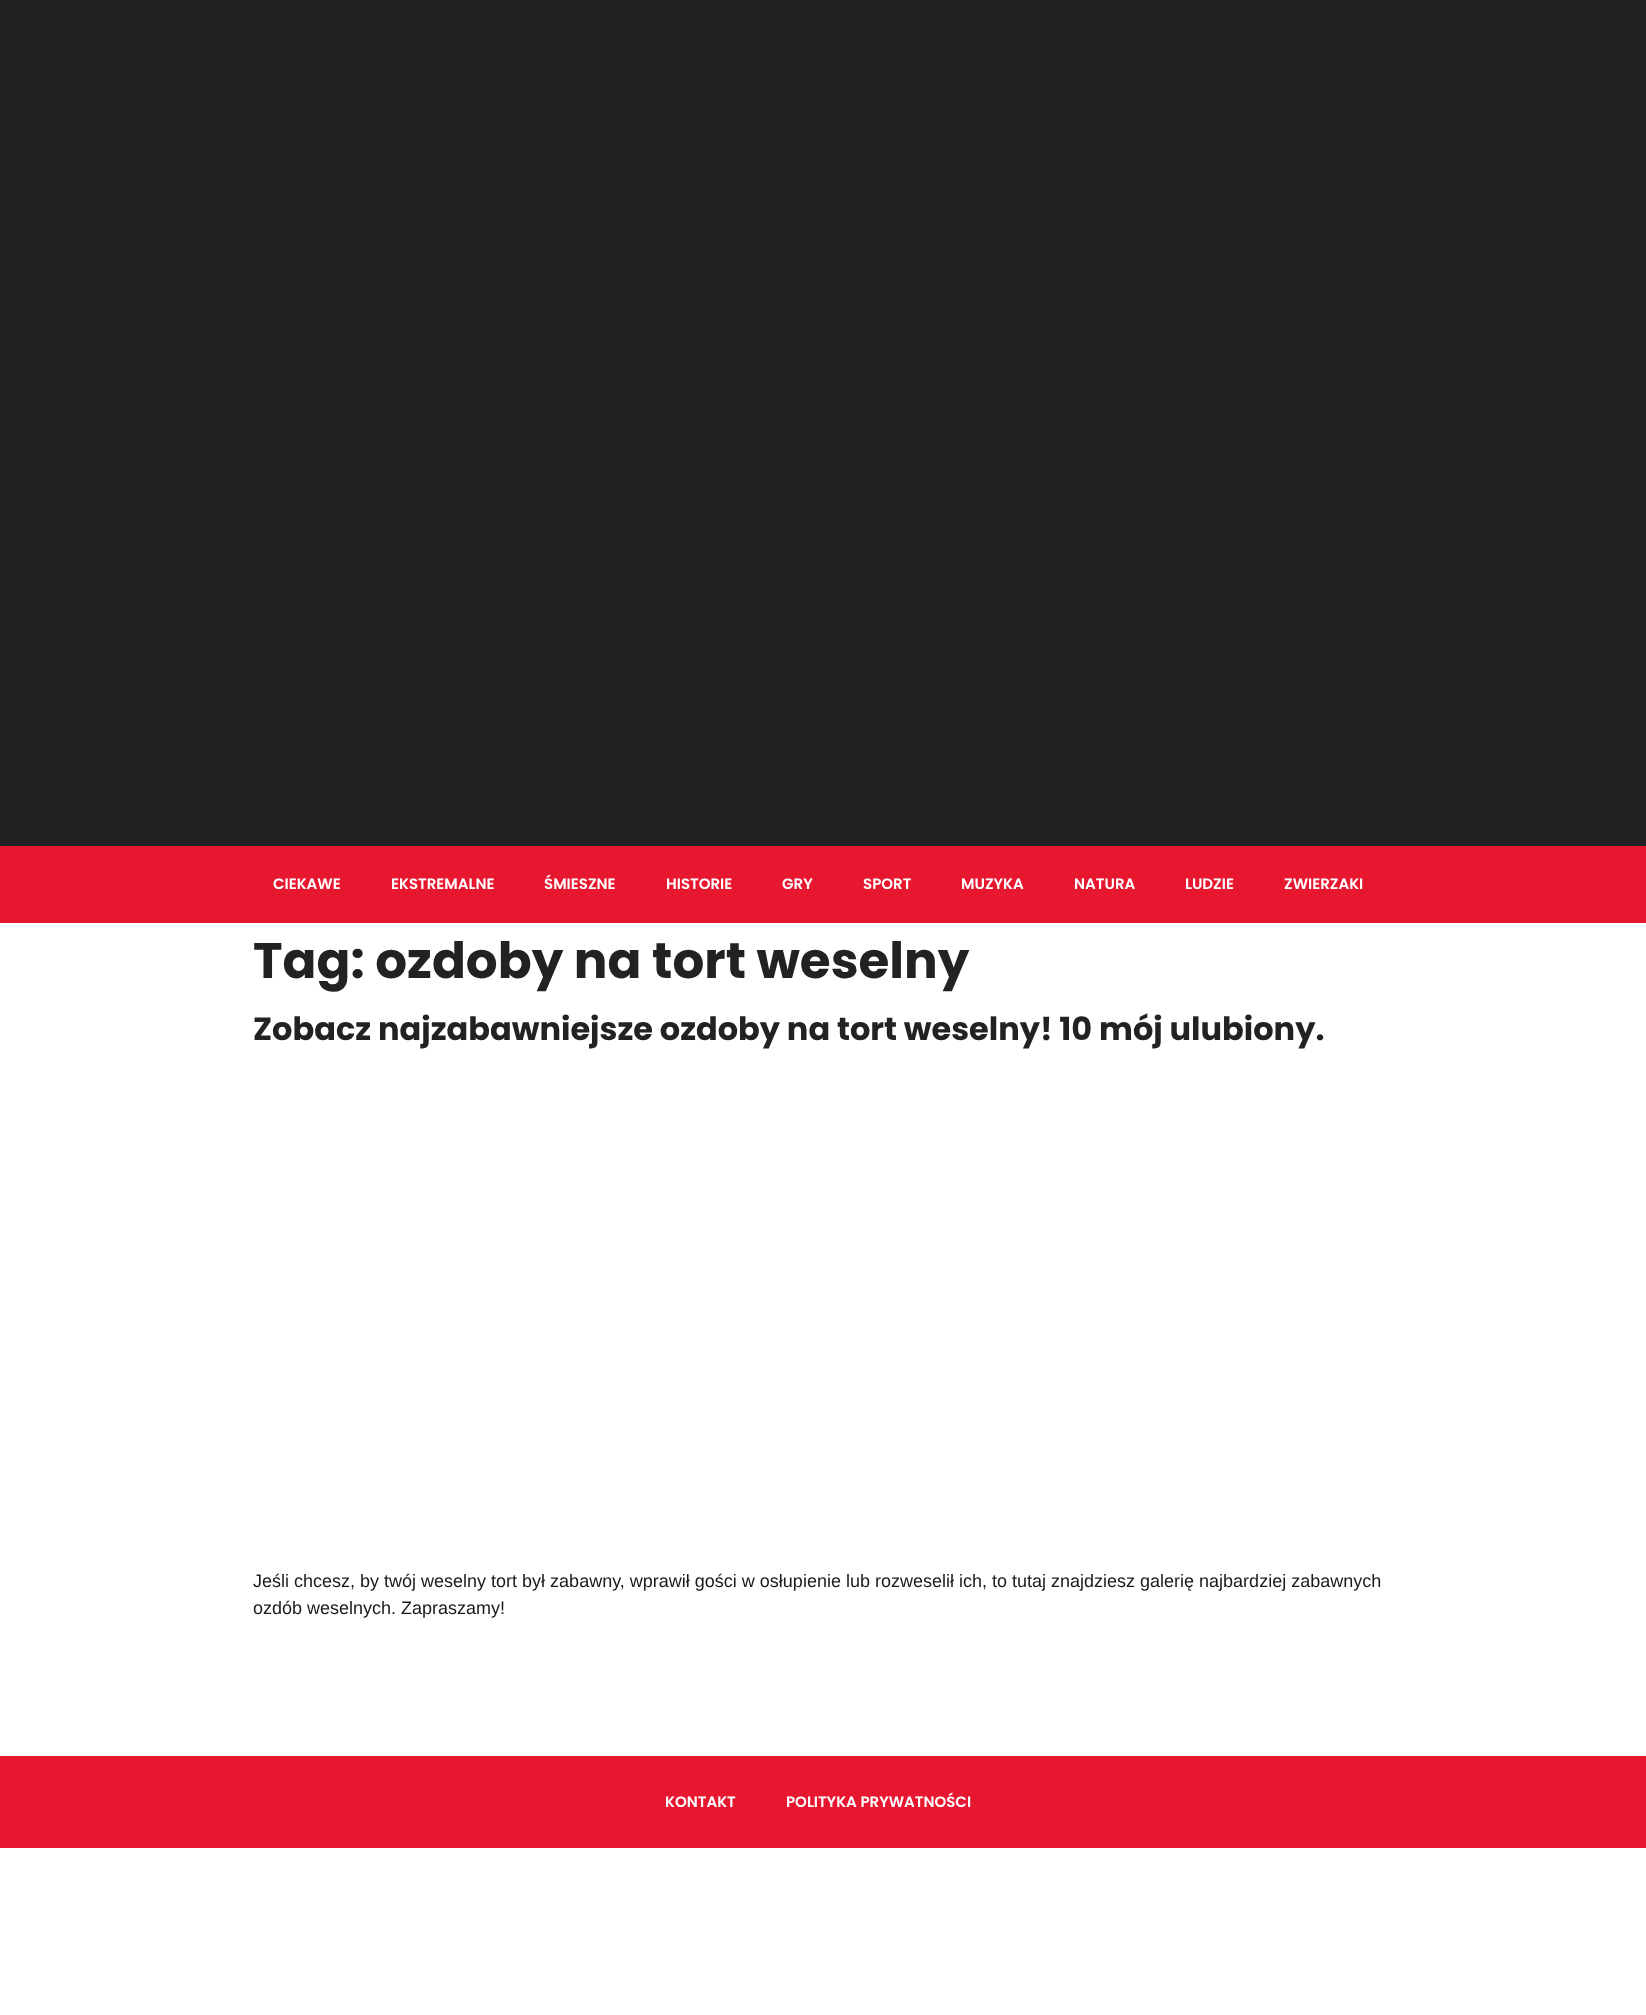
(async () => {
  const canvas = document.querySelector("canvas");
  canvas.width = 1646;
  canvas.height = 2015;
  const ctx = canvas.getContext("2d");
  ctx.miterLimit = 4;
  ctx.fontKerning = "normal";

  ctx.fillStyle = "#ffffff";
  ctx.fillRect(0, 0, 1646, 2015);
  for (const [x, y, w, h, color] of [
    [0, 846, 1646, 77, "#e81730"],
    [0, 0, 1646, 846, "#222222"],
    [0, 1756, 1646, 92, "#e81730"],
  ]) {
    ctx.fillStyle = color;
    ctx.fillRect(x, y, w, h);
  }
  ctx.font = "600 15px Poppins";
  ctx.fillStyle = "#ffffff";
  for (const [text, x, y] of [
    ["CIEKAWE", 273, 889],
    ["EKSTREMALNE", 391, 889],
    ["ŚMIESZNE", 544, 889],
    ["HISTORIE", 666, 889],
    ["GRY", 782, 889],
    ["SPORT", 863, 889],
    ["MUZYKA", 961, 889],
    ["NATURA", 1074, 889],
    ["LUDZIE", 1185, 889],
    ["ZWIERZAKI", 1284, 889],
  ]) {
    ctx.fillText(text, x, y);
  }
  ctx.font = "bold 50px Poppins";
  ctx.fillStyle = "#222222";
  ctx.fillText("Tag: ozdoby na tort weselny", 253, 978);
  ctx.font = "bold 32px Poppins";
  ctx.fillText("Zobacz najzabawniejsze ozdoby na tort weselny! 10 mój ulubiony.", 253, 1040);
  ctx.font = "18px Liberation Sans";
  ctx.fillStyle = "#1a1a1a";
  ctx.fillText("Jeśli chcesz, by twój weselny tort był zabawny, wprawił gości w osłupienie lub rozweselił ich, to tutaj znajdziesz galerię najbardziej zabawnych", 253, 1587);
  ctx.fillText("ozdób weselnych. Zapraszamy!", 253, 1614);
  ctx.font = "600 15px Poppins";
  ctx.fillStyle = "#ffffff";
  ctx.fillText("KONTAKT", 665, 1807);
  ctx.fillText("POLITYKA PRYWATNOŚCI", 786, 1807);
})();
